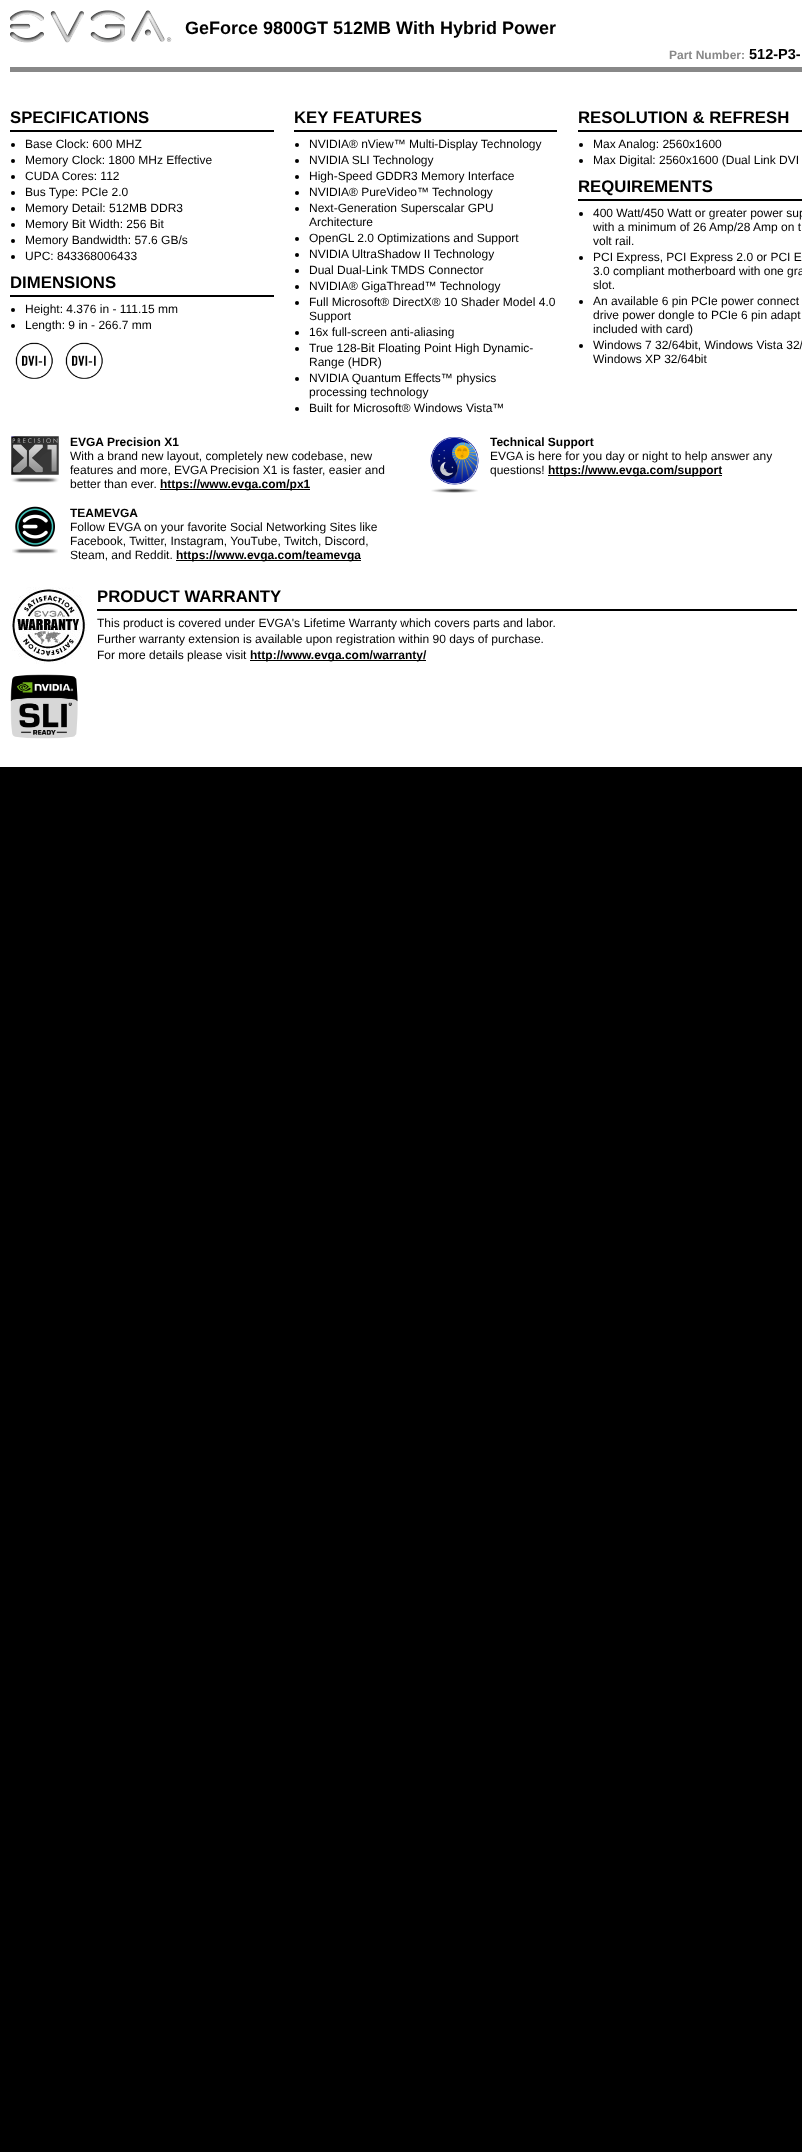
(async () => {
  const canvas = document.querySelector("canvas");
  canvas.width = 802;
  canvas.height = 2152;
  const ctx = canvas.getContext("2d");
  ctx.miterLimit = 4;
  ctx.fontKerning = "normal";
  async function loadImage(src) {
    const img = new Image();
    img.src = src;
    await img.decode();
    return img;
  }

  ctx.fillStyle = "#000000";
  ctx.fillRect(0, 0, 802, 2152);
  ctx.fillStyle = "#ffffff";
  ctx.fillRect(0, 0, 802, 767);
  ctx.fillStyle = "#888888";
  ctx.fillRect(10, 67, 792, 5);
  ctx.drawImage(await loadImage("img/1.png"), 10, 10, 162, 33);
  ctx.fillStyle = "#000000";
  ctx.fillRect(10, 130, 264, 2);
  ctx.beginPath();
  ctx.arc(13, 145, 2, 0, Math.PI * 2);
  ctx.fill();
  ctx.beginPath();
  ctx.arc(13, 161, 2, 0, Math.PI * 2);
  ctx.fill();
  ctx.beginPath();
  ctx.arc(13, 177, 2, 0, Math.PI * 2);
  ctx.fill();
  ctx.beginPath();
  ctx.arc(13, 193, 2, 0, Math.PI * 2);
  ctx.fill();
  ctx.beginPath();
  ctx.arc(13, 209, 2, 0, Math.PI * 2);
  ctx.fill();
  ctx.beginPath();
  ctx.arc(13, 225, 2, 0, Math.PI * 2);
  ctx.fill();
  ctx.beginPath();
  ctx.arc(13, 241, 2, 0, Math.PI * 2);
  ctx.fill();
  ctx.beginPath();
  ctx.arc(13, 257, 2, 0, Math.PI * 2);
  ctx.fill();
  ctx.fillRect(10, 295, 264, 2);
  ctx.beginPath();
  ctx.arc(13, 310, 2, 0, Math.PI * 2);
  ctx.fill();
  ctx.beginPath();
  ctx.arc(13, 326, 2, 0, Math.PI * 2);
  ctx.fill();
  ctx.drawImage(await loadImage("img/2.png"), 15, 342, 38, 37);
  ctx.drawImage(await loadImage("img/3.png"), 65, 342, 38, 37);
  ctx.fillRect(294, 130, 263, 2);
  ctx.beginPath();
  ctx.arc(297, 145, 2, 0, Math.PI * 2);
  ctx.fill();
  ctx.beginPath();
  ctx.arc(297, 161, 2, 0, Math.PI * 2);
  ctx.fill();
  ctx.beginPath();
  ctx.arc(297, 177, 2, 0, Math.PI * 2);
  ctx.fill();
  ctx.beginPath();
  ctx.arc(297, 193, 2, 0, Math.PI * 2);
  ctx.fill();
  ctx.beginPath();
  ctx.arc(297, 209, 2, 0, Math.PI * 2);
  ctx.fill();
  ctx.beginPath();
  ctx.arc(297, 239, 2, 0, Math.PI * 2);
  ctx.fill();
  ctx.beginPath();
  ctx.arc(297, 255, 2, 0, Math.PI * 2);
  ctx.fill();
  ctx.beginPath();
  ctx.arc(297, 271, 2, 0, Math.PI * 2);
  ctx.fill();
  ctx.beginPath();
  ctx.arc(297, 287, 2, 0, Math.PI * 2);
  ctx.fill();
  ctx.beginPath();
  ctx.arc(297, 303, 2, 0, Math.PI * 2);
  ctx.fill();
  ctx.beginPath();
  ctx.arc(297, 333, 2, 0, Math.PI * 2);
  ctx.fill();
  ctx.beginPath();
  ctx.arc(297, 349, 2, 0, Math.PI * 2);
  ctx.fill();
  ctx.beginPath();
  ctx.arc(297, 379, 2, 0, Math.PI * 2);
  ctx.fill();
  ctx.beginPath();
  ctx.arc(297, 409, 2, 0, Math.PI * 2);
  ctx.fill();
  ctx.fillRect(578, 130, 224, 2);
  ctx.beginPath();
  ctx.arc(581, 145, 2, 0, Math.PI * 2);
  ctx.fill();
  ctx.beginPath();
  ctx.arc(581, 161, 2, 0, Math.PI * 2);
  ctx.fill();
  ctx.fillRect(578, 199, 224, 2);
  ctx.beginPath();
  ctx.arc(581, 214, 2, 0, Math.PI * 2);
  ctx.fill();
  ctx.beginPath();
  ctx.arc(581, 258, 2, 0, Math.PI * 2);
  ctx.fill();
  ctx.beginPath();
  ctx.arc(581, 302, 2, 0, Math.PI * 2);
  ctx.fill();
  ctx.beginPath();
  ctx.arc(581, 346, 2, 0, Math.PI * 2);
  ctx.fill();
  ctx.drawImage(await loadImage("img/4.png"), 11, 436, 48, 47);
  ctx.fillRect(160, 489, 150, 1);
  ctx.drawImage(await loadImage("img/5.png"), 430, 437, 49, 56);
  ctx.fillRect(548, 475, 174, 1);
  ctx.drawImage(await loadImage("img/6.png"), 12, 506, 46, 48);
  ctx.fillRect(176, 560, 185, 1);
  ctx.drawImage(await loadImage("img/7.png"), 10, 587, 77, 77);
  ctx.fillRect(97, 609, 700, 2);
  ctx.fillRect(250, 660, 176, 1);
  ctx.drawImage(await loadImage("img/8.png"), 10, 674, 68, 65);
  ctx.font = "bold 18px Liberation Sans";
  ctx.fillText("GeForce 9800GT 512MB With Hybrid Power", 185, 34);
  ctx.font = "bold 12px Liberation Sans";
  ctx.fillStyle = "#888888";
  ctx.fillText("Part Number:", 669, 59);
  ctx.font = "bold 14.5px Liberation Sans";
  ctx.fillStyle = "#000000";
  ctx.fillText("512-P3-", 749, 59);
  ctx.font = "bold 16.75px Liberation Sans";
  ctx.fillText("SPECIFICATIONS", 10, 123);
  ctx.font = "12px Liberation Sans";
  for (const [text, x, y] of [
    ["Base Clock: 600 MHZ", 25, 148],
    ["Memory Clock: 1800 MHz Effective", 25, 164],
    ["CUDA Cores: 112", 25, 180],
    ["Bus Type: PCIe 2.0", 25, 196],
    ["Memory Detail: 512MB DDR3", 25, 212],
    ["Memory Bit Width: 256 Bit", 25, 228],
    ["Memory Bandwidth: 57.6 GB/s", 25, 244],
    ["UPC: 843368006433", 25, 260],
  ]) {
    ctx.fillText(text, x, y);
  }
  ctx.font = "bold 16.75px Liberation Sans";
  ctx.fillText("DIMENSIONS", 10, 288);
  ctx.font = "12px Liberation Sans";
  ctx.fillText("Height: 4.376 in - 111.15 mm", 25, 313);
  ctx.fillText("Length: 9 in - 266.7 mm", 25, 329);
  ctx.font = "bold 16.75px Liberation Sans";
  ctx.fillText("KEY FEATURES", 294, 123);
  ctx.font = "12px Liberation Sans";
  for (const [text, x, y] of [
    ["NVIDIA® nView™ Multi-Display Technology", 309, 148],
    ["NVIDIA SLI Technology", 309, 164],
    ["High-Speed GDDR3 Memory Interface", 309, 180],
    ["NVIDIA® PureVideo™ Technology", 309, 196],
    ["Next-Generation Superscalar GPU", 309, 212],
    ["Architecture", 309, 226],
    ["OpenGL 2.0 Optimizations and Support", 309, 242],
    ["NVIDIA UltraShadow II Technology", 309, 258],
    ["Dual Dual-Link TMDS Connector", 309, 274],
    ["NVIDIA® GigaThread™ Technology", 309, 290],
    ["Full Microsoft® DirectX® 10 Shader Model 4.0", 309, 306],
    ["Support", 309, 320],
    ["16x full-screen anti-aliasing", 309, 336],
    ["True 128-Bit Floating Point High Dynamic-", 309, 352],
    ["Range (HDR)", 309, 366],
    ["NVIDIA Quantum Effects™ physics", 309, 382],
    ["processing technology", 309, 396],
    ["Built for Microsoft® Windows Vista™", 309, 412],
  ]) {
    ctx.fillText(text, x, y);
  }
  ctx.font = "bold 16.75px Liberation Sans";
  ctx.fillText("RESOLUTION & REFRESH", 578, 123);
  ctx.font = "12px Liberation Sans";
  ctx.fillText("Max Analog: 2560x1600", 593, 148);
  ctx.fillText("Max Digital: 2560x1600 (Dual Link DVI", 593, 164);
  ctx.font = "bold 16.75px Liberation Sans";
  ctx.fillText("REQUIREMENTS", 578, 192);
  ctx.font = "12px Liberation Sans";
  for (const [text, x, y] of [
    ["400 Watt/450 Watt or greater power sup", 593, 217],
    ["with a minimum of 26 Amp/28 Amp on t", 593, 231],
    ["volt rail.", 593, 245],
    ["PCI Express, PCI Express 2.0 or PCI E", 593, 261],
    ["3.0 compliant motherboard with one gra", 593, 275],
    ["slot.", 593, 289],
    ["An available 6 pin PCIe power connect", 593, 305],
    ["drive power dongle to PCIe 6 pin adapt", 593, 319],
    ["included with card)", 593, 333],
    ["Windows 7 32/64bit, Windows Vista 32/", 593, 349],
    ["Windows XP 32/64bit", 593, 363],
  ]) {
    ctx.fillText(text, x, y);
  }
  ctx.font = "bold 12px Liberation Sans";
  ctx.fillText("EVGA Precision X1", 70, 446);
  ctx.font = "12px Liberation Sans";
  for (const [text, x, y] of [
    ["With a brand new layout, completely new codebase, new", 70, 460],
    ["features and more, EVGA Precision X1 is faster, easier and", 70, 474],
    ["better than ever.", 70, 488],
  ]) {
    ctx.fillText(text, x, y);
  }
  ctx.font = "bold 12px Liberation Sans";
  ctx.fillText("https://www.evga.com/px1", 160, 488);
  ctx.fillText("Technical Support", 490, 446);
  ctx.font = "12px Liberation Sans";
  ctx.fillText("EVGA is here for you day or night to help answer any", 490, 460);
  ctx.fillText("questions!", 490, 474);
  ctx.font = "bold 12px Liberation Sans";
  ctx.fillText("https://www.evga.com/support", 548, 474);
  ctx.fillText("TEAMEVGA", 70, 517);
  ctx.font = "12px Liberation Sans";
  for (const [text, x, y] of [
    ["Follow EVGA on your favorite Social Networking Sites like", 70, 531],
    ["Facebook, Twitter, Instagram, YouTube, Twitch, Discord,", 70, 545],
    ["Steam, and Reddit.", 70, 559],
  ]) {
    ctx.fillText(text, x, y);
  }
  ctx.font = "bold 12px Liberation Sans";
  ctx.fillText("https://www.evga.com/teamevga", 176, 559);
  ctx.font = "bold 16.75px Liberation Sans";
  ctx.fillText("PRODUCT WARRANTY", 97, 602);
  ctx.font = "12px Liberation Sans";
  for (const [text, x, y] of [
    ["This product is covered under EVGA's Lifetime Warranty which covers parts and labor.", 97, 627],
    ["Further warranty extension is available upon registration within 90 days of purchase.", 97, 643],
    ["For more details please visit", 97, 659],
  ]) {
    ctx.fillText(text, x, y);
  }
  ctx.font = "bold 12px Liberation Sans";
  ctx.fillText("http://www.evga.com/warranty/", 250, 659);
})();
